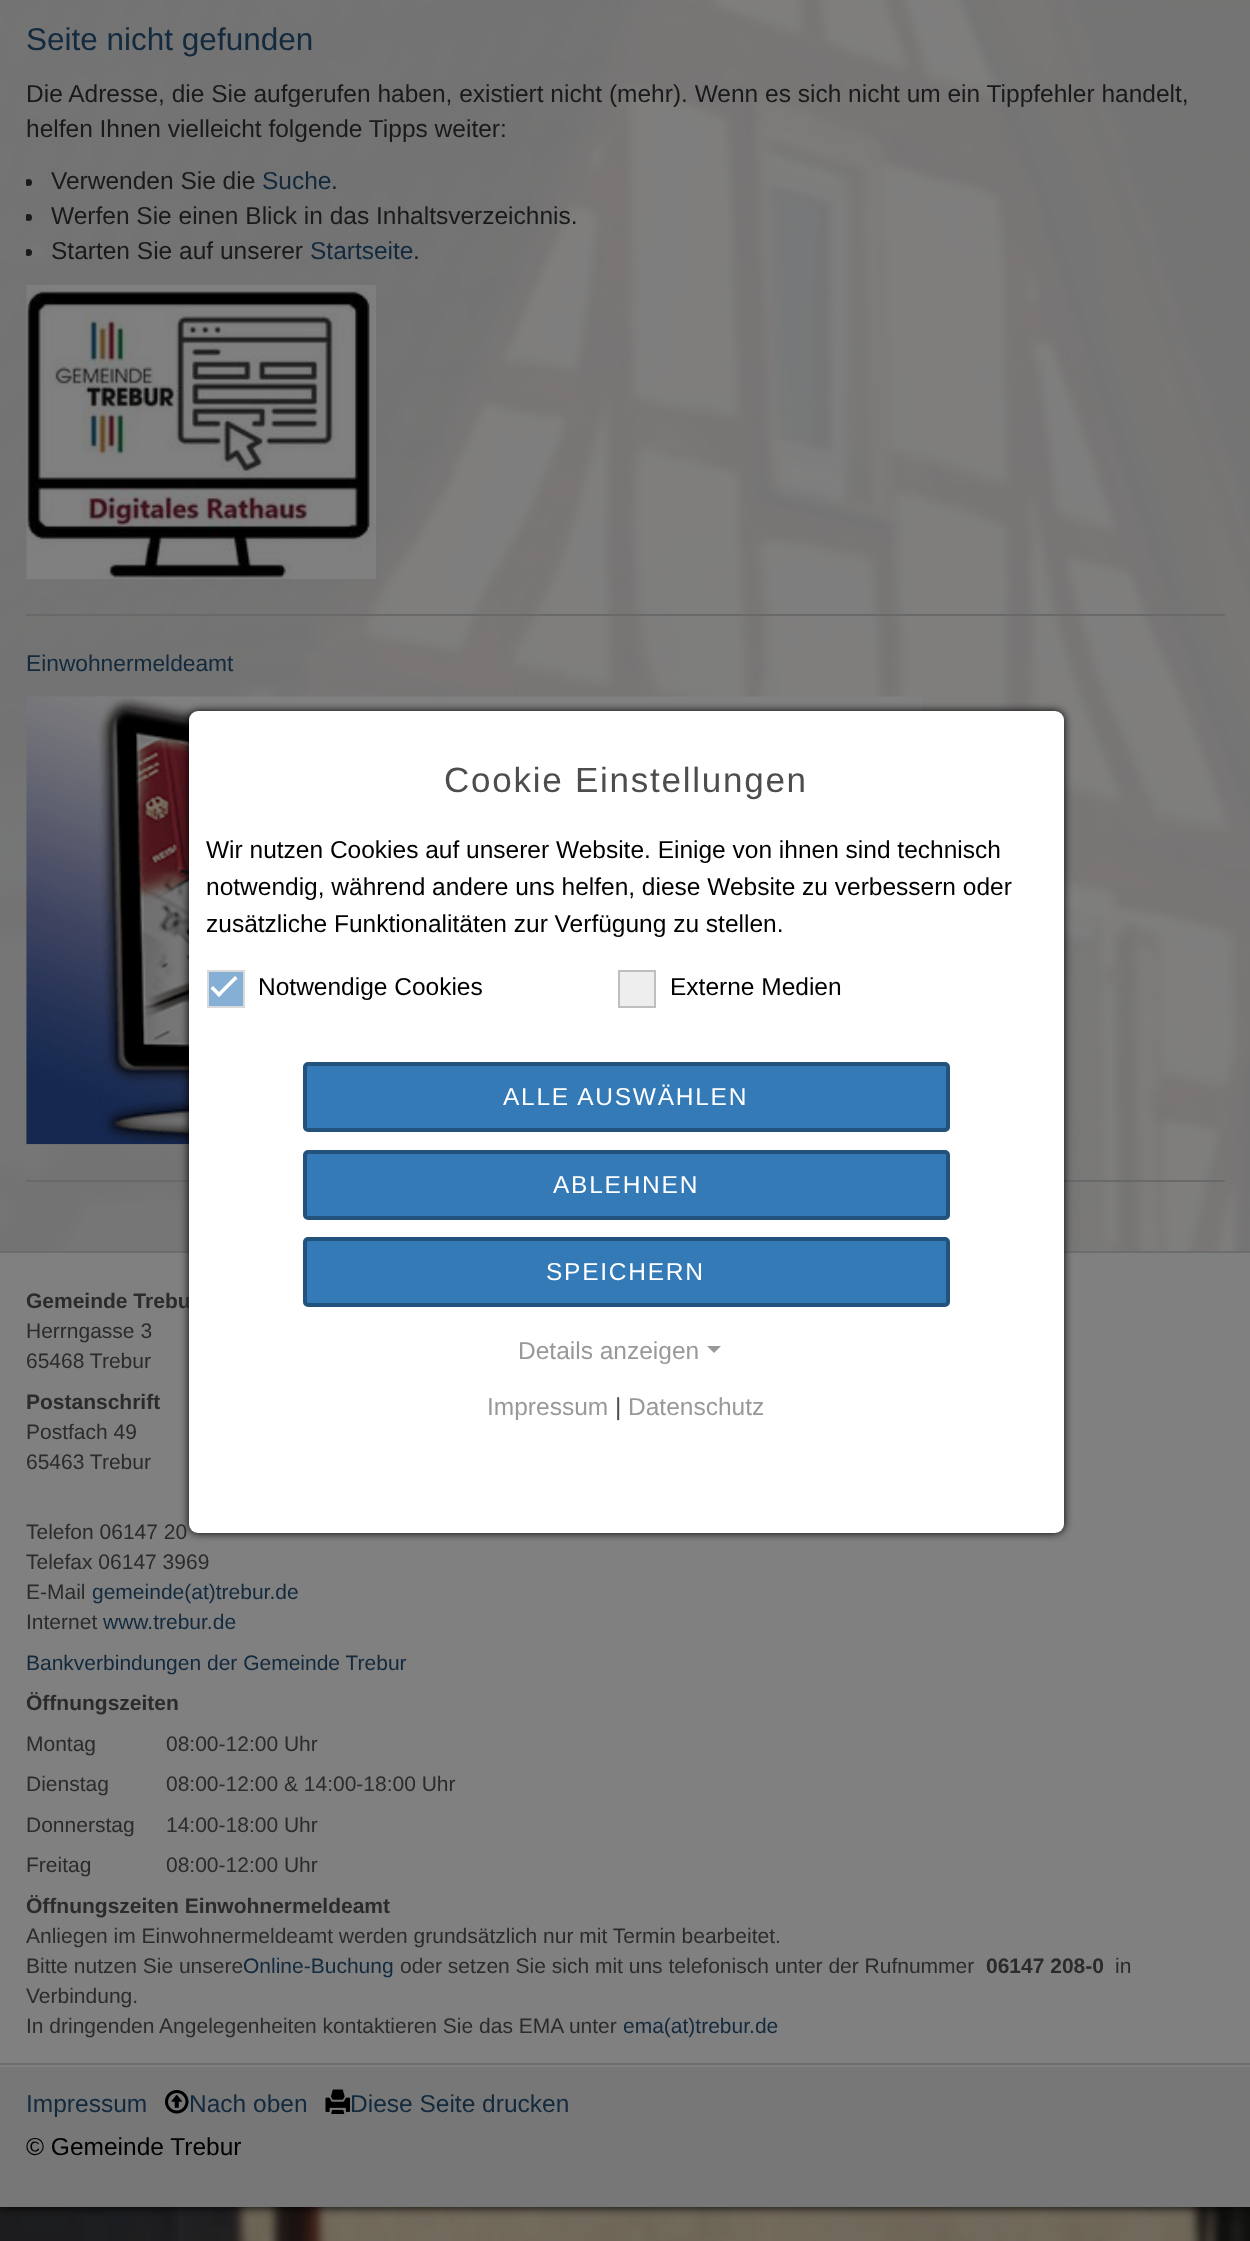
(async () => {
  const canvas = document.querySelector("canvas");
  canvas.width = 1250;
  canvas.height = 2241;
  const ctx = canvas.getContext("2d");
  ctx.miterLimit = 4;
  ctx.fontKerning = "normal";
  async function loadImage(src) {
    const img = new Image();
    img.src = src;
    await img.decode();
    return img;
  }
  let path;

  ctx.fillStyle = "#ffffff";
  ctx.fillRect(0, 0, 1250, 2241);
  ctx.drawImage(await loadImage("img/1.png"), 0, 0, 1250, 2241);
  ctx.save();
  ctx.beginPath();
  ctx.rect(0, 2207, 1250, 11);
  ctx.clip();
  ctx.fillStyle = "rgba(0, 0, 0, 0.75)";
  ctx.filter = "blur(4.5px)";
  ctx.beginPath();
  ctx.rect(0, -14, 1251, 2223);
  ctx.fill();
  ctx.filter = "none";
  ctx.restore();
  ctx.fillStyle = "rgba(128, 128, 128, 0.9)";
  ctx.fillRect(0, 0, 1250, 1251);
  ctx.save();
  ctx.beginPath();
  ctx.rect(26, 75, 1199, 210);
  ctx.clip();
  ctx.fillStyle = "#1a1a1a";
  ctx.beginPath();
  ctx.arc(28.5, 182.5, 3.5, 0, Math.PI * 2);
  ctx.fill();
  ctx.beginPath();
  ctx.arc(28.5, 217.5, 3.5, 0, Math.PI * 2);
  ctx.fill();
  ctx.beginPath();
  ctx.arc(28.5, 252.5, 3.5, 0, Math.PI * 2);
  ctx.fill();
  ctx.restore();
  ctx.drawImage(await loadImage("img/2.png"), 26, 285, 350, 294);
  ctx.fillStyle = "#696969";
  ctx.fillRect(26, 614, 1199, 2);
  ctx.drawImage(await loadImage("img/3.png"), 26, 696, 896, 449);
  for (const [x, y, w, h, color] of [
    [26, 1180, 1199, 2, "#696969"],
    [0, 1253, 1250, 810, "#808080"],
    [0, 1251, 1250, 2, "#6d6d6d"],
    [0, 2063, 1250, 2, "#6d6d6d"],
    [0, 2067, 1250, 140, "#777777"],
    [0, 2065, 1250, 2, "#808080"],
  ]) {
    ctx.fillStyle = color;
    ctx.fillRect(x, y, w, h);
  }
  ctx.drawImage(await loadImage("img/4.png"), 165, 2090, 24, 24);
  ctx.drawImage(await loadImage("img/5.png"), 325, 2089, 25, 25);
  ctx.fillStyle = "#000000";
  ctx.filter = "blur(4.5px)";
  ctx.beginPath();
  ctx.roundRect(189, 711, 875, 822, 9);
  ctx.fill();
  ctx.filter = "none";
  ctx.font = "31.5px Liberation Sans";
  ctx.fillStyle = "#12293e";
  ctx.fillText("Seite nicht gefunden", 26, 50);
  ctx.font = "24.5px Liberation Sans";
  ctx.fillStyle = "#1a1a1a";
  for (const [text, x, y] of [
    ["Die Adresse, die Sie aufgerufen haben, existiert nicht (mehr). Wenn es sich nicht um ein Tippfehler handelt,", 26, 102],
    ["helfen Ihnen vielleicht folgende Tipps weiter:", 26, 137],
    ["Verwenden Sie die", 51, 189],
  ]) {
    ctx.fillText(text, x, y);
  }
  ctx.fillStyle = "#12293e";
  ctx.fillText("Suche", 262, 189);
  ctx.fillStyle = "#1a1a1a";
  for (const [text, x, y] of [
    [".", 331, 189],
    ["Werfen Sie einen Blick in das Inhaltsverzeichnis.", 51, 224],
    ["Starten Sie auf unserer", 51, 259],
  ]) {
    ctx.fillText(text, x, y);
  }
  ctx.fillStyle = "#12293e";
  ctx.fillText("Startseite", 310, 259);
  ctx.fillStyle = "#1a1a1a";
  ctx.fillText(".", 413, 259);
  ctx.font = "22.75px Liberation Sans";
  ctx.fillStyle = "#12293e";
  ctx.fillText("Einwohnermeldeamt", 26, 671);
  ctx.font = "bold 21px Liberation Sans";
  ctx.fillStyle = "#2b2b2b";
  ctx.fillText("Gemeinde Trebu", 26, 1308);
  ctx.font = "21px Liberation Sans";
  ctx.fillText("Herrngasse 3", 26, 1338);
  ctx.fillText("65468 Trebur", 26, 1368);
  ctx.font = "bold 21px Liberation Sans";
  ctx.fillText("Postanschrift", 26, 1409);
  ctx.font = "21px Liberation Sans";
  for (const [text, x, y] of [
    ["Postfach 49", 26, 1439],
    ["65463 Trebur", 26, 1469],
    ["Telefon 06147 20", 26, 1539],
    ["Telefax 06147 3969", 26, 1569],
    ["E-Mail", 26, 1599],
  ]) {
    ctx.fillText(text, x, y);
  }
  ctx.fillStyle = "#12293e";
  ctx.fillText("gemeinde(at)trebur.de", 92, 1599);
  ctx.fillStyle = "#2b2b2b";
  ctx.fillText("Internet", 26, 1629);
  ctx.fillStyle = "#12293e";
  ctx.fillText("www.trebur.de", 103, 1629);
  ctx.fillText("Bankverbindungen der Gemeinde Trebur", 26, 1670);
  ctx.font = "bold 21px Liberation Sans";
  ctx.fillStyle = "#2b2b2b";
  ctx.fillText("Öffnungszeiten", 26, 1710);
  ctx.font = "21px Liberation Sans";
  for (const [text, x, y] of [
    ["Montag", 26, 1751],
    ["08:00-12:00 Uhr", 166, 1751],
    ["Dienstag", 26, 1791],
    ["08:00-12:00 & 14:00-18:00 Uhr", 166, 1791],
    ["Donnerstag", 26, 1832],
    ["14:00-18:00 Uhr", 166, 1832],
    ["Freitag", 26, 1872],
    ["08:00-12:00 Uhr", 166, 1872],
  ]) {
    ctx.fillText(text, x, y);
  }
  ctx.font = "bold 21px Liberation Sans";
  ctx.fillText("Öffnungszeiten Einwohnermeldeamt", 26, 1913);
  ctx.font = "21px Liberation Sans";
  ctx.fillText("Anliegen im Einwohnermeldeamt werden grundsätzlich nur mit Termin bearbeitet.", 26, 1943);
  ctx.fillText("Bitte nutzen Sie unsere", 26, 1973);
  ctx.fillStyle = "#12293e";
  ctx.fillText("Online-Buchung", 243, 1973);
  ctx.fillStyle = "#2b2b2b";
  ctx.fillText("oder setzen Sie sich mit uns telefonisch unter der Rufnummer", 400, 1973);
  ctx.font = "bold 21px Liberation Sans";
  ctx.fillText("06147 208-0", 986, 1973);
  ctx.font = "21px Liberation Sans";
  for (const [text, x, y] of [
    ["in", 1115, 1973],
    ["Verbindung.", 26, 2003],
    ["In dringenden Angelegenheiten kontaktieren Sie das EMA unter", 26, 2033],
  ]) {
    ctx.fillText(text, x, y);
  }
  ctx.fillStyle = "#12293e";
  ctx.fillText("ema(at)trebur.de", 623, 2033);
  ctx.font = "24.5px Liberation Sans";
  for (const [text, x, y] of [
    ["Impressum", 26, 2112],
    ["Nach oben", 189, 2112],
    ["Diese Seite drucken", 350, 2112],
  ]) {
    ctx.fillText(text, x, y);
  }
  ctx.fillStyle = "#000000";
  ctx.fillText("© Gemeinde Trebur", 26, 2155);
  ctx.fillStyle = "#ffffff";
  ctx.beginPath();
  ctx.roundRect(189, 711, 875, 822, 9);
  ctx.fill();
  ctx.letterSpacing = "1.75px";
  ctx.font = "35px Liberation Sans";
  ctx.fillStyle = "#4d4d4d";
  ctx.fillText("Cookie Einstellungen", 444, 792);
  ctx.letterSpacing = "0px";
  ctx.font = "24.5px Liberation Sans";
  ctx.fillStyle = "#000000";
  for (const [text, x, y] of [
    ["Wir nutzen Cookies auf unserer Website. Einige von ihnen sind technisch", 206, 858],
    ["notwendig, während andere uns helfen, diese Website zu verbessern oder", 206, 895],
    ["zusätzliche Funktionalitäten zur Verfügung zu stellen.", 206, 932],
  ]) {
    ctx.fillText(text, x, y);
  }
  ctx.fillStyle = "#85afd4";
  ctx.beginPath();
  ctx.rect(208, 971, 36, 36);
  ctx.fill();
  ctx.strokeStyle = "#d9d9d9";
  ctx.lineWidth = 2;
  ctx.stroke();
  ctx.fillStyle = "#ffffff";
  path = new Path2D("M235 976L237.5 978.5L219 997L216.5 994.5Z");
  ctx.fill(path);
  path = new Path2D("M213 986L221.5 994.5L219 997L210.5 988.5Z");
  ctx.fill(path);
  ctx.fillStyle = "#000000";
  ctx.fillText("Notwendige Cookies", 258, 995);
  ctx.fillStyle = "#eeeeee";
  ctx.beginPath();
  ctx.rect(619, 971, 36, 36);
  ctx.fill();
  ctx.strokeStyle = "#bfbfbf";
  ctx.stroke();
  ctx.fillStyle = "#000000";
  ctx.fillText("Externe Medien", 670, 995);
  ctx.fillStyle = "#337ab7";
  ctx.beginPath();
  ctx.roundRect(305, 1064, 643, 66, 3);
  ctx.fill();
  ctx.strokeStyle = "#23527c";
  ctx.lineWidth = 4;
  ctx.stroke();
  ctx.letterSpacing = "1.75px";
  ctx.fillStyle = "#ffffff";
  ctx.fillText("ALLE AUSWÄHLEN", 503, 1105);
  ctx.fillStyle = "#337ab7";
  ctx.beginPath();
  ctx.roundRect(305, 1152, 643, 66, 3);
  ctx.fill();
  ctx.stroke();
  ctx.fillStyle = "#ffffff";
  ctx.fillText("ABLEHNEN", 553, 1193);
  ctx.fillStyle = "#337ab7";
  ctx.beginPath();
  ctx.roundRect(305, 1239, 643, 66, 3);
  ctx.fill();
  ctx.stroke();
  ctx.fillStyle = "#ffffff";
  ctx.fillText("SPEICHERN", 546, 1280);
  ctx.letterSpacing = "0px";
  ctx.fillStyle = "#999999";
  ctx.fillText("Details anzeigen", 518, 1359);
  path = new Path2D("M707 1346H721L714 1353Z");
  ctx.fill(path);
  ctx.fillText("Impressum", 487, 1415);
  ctx.fillStyle = "#4d4d4d";
  ctx.fillText("|", 615, 1415);
  ctx.fillStyle = "#999999";
  ctx.fillText("Datenschutz", 628, 1415);
})();
